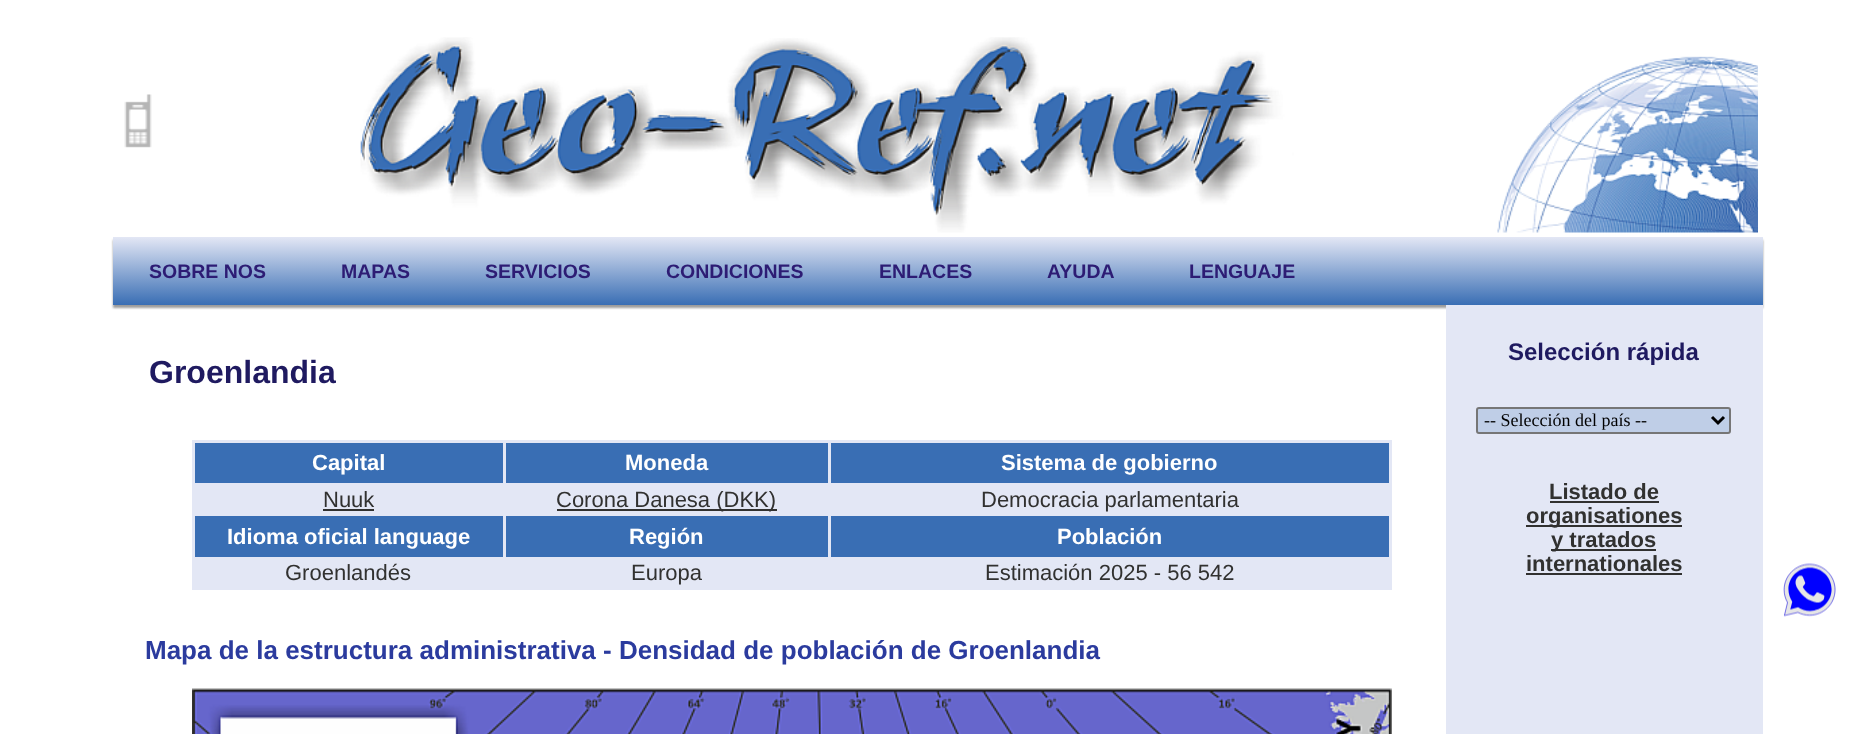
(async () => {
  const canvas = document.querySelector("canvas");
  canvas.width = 1873;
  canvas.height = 734;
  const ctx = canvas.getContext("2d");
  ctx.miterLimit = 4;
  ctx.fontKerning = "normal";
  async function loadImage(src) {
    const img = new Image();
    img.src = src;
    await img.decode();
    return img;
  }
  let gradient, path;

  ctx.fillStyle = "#ffffff";
  ctx.fillRect(0, 0, 1873, 734);
  ctx.drawImage(await loadImage("img/1.png"), 124, 94, 28, 54);
  ctx.drawImage(await loadImage("img/2.png"), 360, 37, 1398, 196);
  ctx.fillStyle = "#9c9c9c";
  ctx.filter = "blur(1px)";
  ctx.beginPath();
  ctx.rect(113, 240, 1650, 68);
  ctx.fill();
  ctx.filter = "none";
  gradient = ctx.createLinearGradient(938, 237, 938, 305);
  gradient.addColorStop(0, "#e3e7f5");
  gradient.addColorStop(1, "#396eb4");
  ctx.fillStyle = gradient;
  ctx.fillRect(113, 237, 1650, 68);
  for (const [x, y, w, h, color] of [
    [192, 440, 1200, 150, "#e3e7f5"],
    [195, 443, 308, 40, "#396eb4"],
    [506, 443, 322, 40, "#396eb4"],
    [831, 443, 558, 40, "#396eb4"],
    [323, 509, 51, 2, "#313130"],
    [557, 509, 220, 2, "#313130"],
    [195, 516, 308, 41, "#396eb4"],
    [506, 516, 322, 41, "#396eb4"],
    [831, 516, 558, 41, "#396eb4"],
  ]) {
    ctx.fillStyle = color;
    ctx.fillRect(x, y, w, h);
  }
  ctx.drawImage(await loadImage("img/3.png"), 192, 688, 1200, 46);
  ctx.fillStyle = "#e3e7f5";
  ctx.fillRect(1446, 305, 317, 429);
  ctx.fillStyle = "#bfcee7";
  ctx.beginPath();
  ctx.roundRect(1477, 408, 253, 25, 2);
  ctx.fill();
  ctx.strokeStyle = "#767676";
  ctx.lineWidth = 2;
  ctx.stroke();
  path = new Path2D("M1712 417L1718 423L1724 417");
  ctx.strokeStyle = "#000000";
  ctx.lineWidth = 3;
  ctx.stroke(path);
  for (const [x, y, w, h, color] of [
    [1550, 501, 109, 2, "#313130"],
    [1526, 525, 156, 2, "#313130"],
    [1551, 549, 105, 2, "#313130"],
    [1526, 573, 156, 2, "#313130"],
  ]) {
    ctx.fillStyle = color;
    ctx.fillRect(x, y, w, h);
  }
  ctx.drawImage(await loadImage("img/4.png"), 1783, 563, 53, 54);
  ctx.font = "bold 19.5px Liberation Sans";
  ctx.fillStyle = "#2d1c74";
  for (const [text, x, y] of [
    ["SOBRE NOS", 149, 278],
    ["MAPAS", 341, 278],
    ["SERVICIOS", 485, 278],
    ["CONDICIONES", 666, 278],
    ["ENLACES", 879, 278],
    ["AYUDA", 1047, 278],
    ["LENGUAJE", 1189, 278],
  ]) {
    ctx.fillText(text, x, y);
  }
  ctx.font = "bold 32px Liberation Sans";
  ctx.fillStyle = "#1f1a60";
  ctx.fillText("Groenlandia", 149, 383);
  ctx.font = "bold 22px Liberation Sans";
  ctx.fillStyle = "#ffffff";
  for (const [text, x, y] of [
    ["Capital", 312, 470],
    ["Moneda", 625, 470],
    ["Sistema de gobierno", 1001, 470],
  ]) {
    ctx.fillText(text, x, y);
  }
  ctx.font = "22px Liberation Sans";
  ctx.fillStyle = "#313130";
  for (const [text, x, y] of [
    ["Nuuk", 323, 507],
    ["Corona Danesa (DKK)", 556, 507],
    ["Democracia parlamentaria", 981, 507],
  ]) {
    ctx.fillText(text, x, y);
  }
  ctx.font = "bold 22px Liberation Sans";
  ctx.fillStyle = "#ffffff";
  for (const [text, x, y] of [
    ["Idioma oficial language", 227, 544],
    ["Región", 629, 544],
    ["Población", 1057, 544],
  ]) {
    ctx.fillText(text, x, y);
  }
  ctx.font = "22px Liberation Sans";
  ctx.fillStyle = "#313130";
  for (const [text, x, y] of [
    ["Groenlandés", 285, 580],
    ["Europa", 631, 580],
    ["Estimación 2025 - 56 542", 985, 580],
  ]) {
    ctx.fillText(text, x, y);
  }
  ctx.font = "bold 26px Liberation Sans";
  ctx.fillStyle = "#2b3b9e";
  ctx.fillText("Mapa de la estructura administrativa - Densidad de población de Groenlandia", 145, 659);
  ctx.font = "bold 24px Liberation Sans";
  ctx.fillStyle = "#1f1a60";
  ctx.fillText("Selección rápida", 1508, 360);
  ctx.font = "18px Liberation Serif";
  ctx.fillStyle = "#000000";
  ctx.fillText("-- Selección del país --", 1484, 426);
  ctx.font = "bold 22px Liberation Sans";
  ctx.fillStyle = "#313130";
  for (const [text, x, y] of [
    ["Listado de", 1549, 499],
    ["organisationes", 1526, 523],
    ["y tratados", 1551, 547],
    ["internationales", 1526, 571],
  ]) {
    ctx.fillText(text, x, y);
  }
})();
